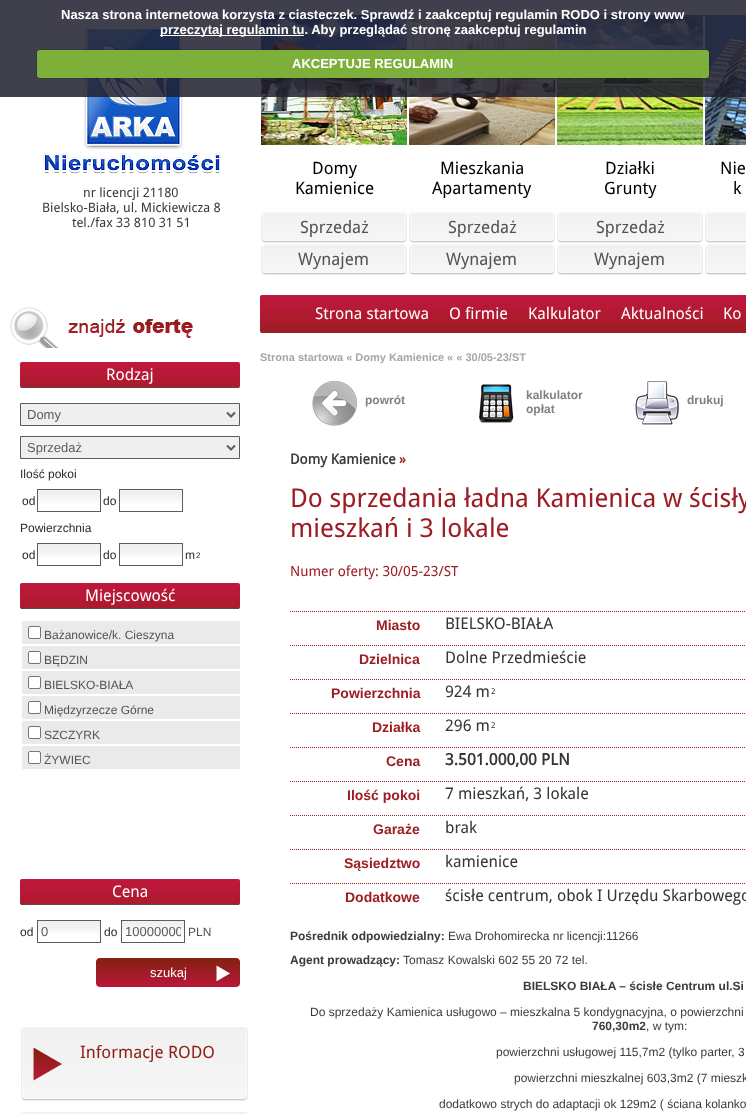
(async () => {
  const canvas = document.querySelector("canvas");
  canvas.width = 746;
  canvas.height = 1114;
  const ctx = canvas.getContext("2d");
  ctx.miterLimit = 4;
  ctx.fontKerning = "normal";
  async function loadImage(src) {
    const img = new Image();
    img.src = src;
    await img.decode();
    return img;
  }
  let path;

  ctx.fillStyle = "#ffffff";
  ctx.fillRect(0, 0, 746, 1114);
  ctx.drawImage(await loadImage("img/1.png"), 43, 27, 178, 147);
  ctx.drawImage(await loadImage("img/2.png"), 261, 15, 146, 130);
  ctx.drawImage(await loadImage("img/4.png"), 409, 15, 146, 130);
  ctx.drawImage(await loadImage("img/5.png"), 557, 15, 146, 130);
  ctx.drawImage(await loadImage("img/6.png"), 705, 15, 41, 130);
  ctx.fillStyle = "rgba(30, 30, 46, 0.85)";
  ctx.fillRect(0, 0, 746, 97);
  ctx.fillStyle = "#ffffff";
  ctx.fillRect(160, 35, 144, 1);
  ctx.fillStyle = "rgba(0, 0, 0, 0.25)";
  ctx.filter = "blur(1px)";
  ctx.beginPath();
  ctx.roundRect(37, 50, 672, 28, 3);
  ctx.fill();
  ctx.filter = "none";
  ctx.fillStyle = "#7daf3b";
  ctx.beginPath();
  ctx.roundRect(37, 50, 672, 28, 3);
  ctx.fill();
  ctx.drawImage(await loadImage("img/3.png"), 261, 212, 146, 31);
  ctx.drawImage(await loadImage("img/3.png"), 261, 244, 146, 31);
  ctx.drawImage(await loadImage("img/3.png"), 409, 212, 146, 31);
  ctx.drawImage(await loadImage("img/3.png"), 409, 244, 146, 31);
  ctx.drawImage(await loadImage("img/3.png"), 557, 212, 146, 31);
  ctx.drawImage(await loadImage("img/3.png"), 557, 244, 146, 31);
  ctx.drawImage(await loadImage("img/7.png"), 705, 212, 41, 31);
  ctx.drawImage(await loadImage("img/7.png"), 705, 244, 41, 31);
  ctx.drawImage(await loadImage("img/8.png"), 10, 307, 183, 41);
  ctx.drawImage(await loadImage("img/9.png"), 20, 362, 220, 26);
  ctx.fillStyle = "#5c4849";
  ctx.fillRect(21, 387, 218, 1);
  ctx.fillStyle = "#efefef";
  ctx.beginPath();
  ctx.rect(20.5, 403.5, 219, 22);
  ctx.fill();
  ctx.strokeStyle = "#5c5c5c";
  ctx.stroke();
  path = new Path2D("M227 412.5L231 416.5L235 412.5");
  ctx.lineWidth = 2;
  ctx.stroke(path);
  ctx.beginPath();
  ctx.rect(20.5, 436.5, 219, 22);
  ctx.fill();
  ctx.lineWidth = 1;
  ctx.stroke();
  path = new Path2D("M227 445.5L231 449.5L235 445.5");
  ctx.lineWidth = 2;
  ctx.stroke(path);
  ctx.drawImage(await loadImage("img/10.png"), 38, 490, 62, 13);
  ctx.lineWidth = 1;
  ctx.strokeRect(37.5, 489.5, 63, 22);
  ctx.drawImage(await loadImage("img/10.png"), 120, 490, 62, 13);
  ctx.strokeRect(119.5, 489.5, 63, 22);
  ctx.drawImage(await loadImage("img/10.png"), 38, 544, 62, 13);
  ctx.strokeRect(37.5, 543.5, 63, 22);
  ctx.drawImage(await loadImage("img/10.png"), 120, 544, 62, 13);
  ctx.strokeRect(119.5, 543.5, 63, 22);
  ctx.drawImage(await loadImage("img/9.png"), 20, 583, 220, 26);
  ctx.fillStyle = "#5c4849";
  ctx.fillRect(21, 608, 218, 1);
  ctx.fillStyle = "#eaeaeb";
  ctx.fillRect(22, 621, 218, 23);
  ctx.fillStyle = "#ffffff";
  ctx.beginPath();
  ctx.roundRect(28.5, 626.5, 12, 12, 1.5);
  ctx.fill();
  ctx.strokeStyle = "#767676";
  ctx.stroke();
  ctx.fillStyle = "#eaeaeb";
  ctx.fillRect(22, 646, 218, 23);
  ctx.fillStyle = "#ffffff";
  ctx.beginPath();
  ctx.roundRect(28.5, 651.5, 12, 12, 1.5);
  ctx.fill();
  ctx.stroke();
  ctx.fillStyle = "#eaeaeb";
  ctx.fillRect(22, 671, 218, 23);
  ctx.fillStyle = "#ffffff";
  ctx.beginPath();
  ctx.roundRect(28.5, 676.5, 12, 12, 1.5);
  ctx.fill();
  ctx.stroke();
  ctx.fillStyle = "#eaeaeb";
  ctx.fillRect(22, 696, 218, 23);
  ctx.fillStyle = "#ffffff";
  ctx.beginPath();
  ctx.roundRect(28.5, 701.5, 12, 12, 1.5);
  ctx.fill();
  ctx.stroke();
  ctx.fillStyle = "#eaeaeb";
  ctx.fillRect(22, 721, 218, 23);
  ctx.fillStyle = "#ffffff";
  ctx.beginPath();
  ctx.roundRect(28.5, 726.5, 12, 12, 1.5);
  ctx.fill();
  ctx.stroke();
  ctx.fillStyle = "#eaeaeb";
  ctx.fillRect(22, 746, 218, 23);
  ctx.fillStyle = "#ffffff";
  ctx.beginPath();
  ctx.roundRect(28.5, 751.5, 12, 12, 1.5);
  ctx.fill();
  ctx.stroke();
  ctx.drawImage(await loadImage("img/9.png"), 20, 879, 220, 26);
  ctx.fillStyle = "#5c4849";
  ctx.fillRect(21, 904, 218, 1);
  ctx.drawImage(await loadImage("img/10.png"), 38, 921, 62, 13);
  ctx.strokeStyle = "#5c5c5c";
  ctx.strokeRect(37.5, 920.5, 63, 22);
  ctx.drawImage(await loadImage("img/10.png"), 122, 921, 62, 13);
  ctx.strokeRect(121.5, 920.5, 63, 22);
  ctx.drawImage(await loadImage("img/11.png"), 96, 958, 144, 29);
  ctx.drawImage(await loadImage("img/12.png"), 21, 1027, 227, 74);
  ctx.drawImage(await loadImage("img/13.png"), 21, 1112, 227, 2);
  ctx.drawImage(await loadImage("img/14.png"), 260, 295, 486, 38);
  ctx.drawImage(await loadImage("img/15.png"), 312, 380, 46, 46);
  ctx.drawImage(await loadImage("img/16.png"), 479, 384, 35, 39);
  ctx.drawImage(await loadImage("img/17.png"), 635, 381, 44, 44);
  path = new Path2D("M290 611.5H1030");
  ctx.strokeStyle = "#9d1d23";
  ctx.setLineDash([1, 1]);
  ctx.stroke(path);
  path = new Path2D("M290 645.5H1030");
  ctx.stroke(path);
  path = new Path2D("M290 679.5H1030");
  ctx.stroke(path);
  path = new Path2D("M290 713.5H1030");
  ctx.stroke(path);
  path = new Path2D("M290 747.5H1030");
  ctx.stroke(path);
  path = new Path2D("M290 781.5H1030");
  ctx.stroke(path);
  path = new Path2D("M290 815.5H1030");
  ctx.stroke(path);
  path = new Path2D("M290 849.5H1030");
  ctx.stroke(path);
  path = new Path2D("M290 883.5H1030");
  ctx.stroke(path);
  ctx.font = "bold 13px Liberation Sans";
  ctx.fillStyle = "#ffffff";
  for (const [text, x, y] of [
    ["Nasza strona internetowa korzysta z ciasteczek. Sprawdź i zaakceptuj regulamin RODO i strony www", 61, 19],
    ["przeczytaj regulamin tu. Aby przeglądać stronę zaakceptuj regulamin", 160, 34],
    ["AKCEPTUJE REGULAMIN", 292, 68],
  ]) {
    ctx.fillText(text, x, y);
  }
  ctx.font = "13px Droid Sans";
  ctx.fillStyle = "#3b3b3b";
  for (const [text, x, y] of [
    ["nr licencji 21180", 83, 197],
    ["Bielsko-Biała, ul. Mickiewicza 8", 42, 212],
    ["tel./fax 33 810 31 51", 72, 227],
  ]) {
    ctx.fillText(text, x, y);
  }
  ctx.font = "17px Droid Sans";
  ctx.fillStyle = "#000000";
  ctx.fillText("Domy", 312, 174);
  ctx.fillText("Kamienice", 295, 194);
  ctx.fillStyle = "#535353";
  ctx.fillText("Sprzedaż", 300, 233);
  ctx.fillText("Wynajem", 298, 265);
  ctx.fillStyle = "#000000";
  ctx.fillText("Mieszkania", 440, 174);
  ctx.fillText("Apartamenty", 432, 194);
  ctx.fillStyle = "#535353";
  ctx.fillText("Sprzedaż", 448, 233);
  ctx.fillText("Wynajem", 446, 265);
  ctx.fillStyle = "#000000";
  ctx.fillText("Działki", 605, 174);
  ctx.fillText("Grunty", 604, 194);
  ctx.fillStyle = "#535353";
  ctx.fillText("Sprzedaż", 596, 233);
  ctx.fillText("Wynajem", 594, 265);
  ctx.fillStyle = "#000000";
  ctx.fillText("Nie", 720, 174);
  ctx.fillText("k", 733, 194);
  ctx.font = "16px Droid Sans";
  ctx.fillStyle = "#ffffff";
  ctx.fillText("Rodzaj", 106, 380);
  ctx.font = "13px Liberation Sans";
  ctx.fillStyle = "#5c5c5c";
  ctx.fillText("Domy", 27, 419);
  ctx.fillText("Sprzedaż", 27, 452);
  ctx.font = "12px Liberation Sans";
  ctx.fillStyle = "#2b2b2b";
  for (const [text, x, y] of [
    ["Ilość pokoi", 20, 478],
    ["od", 22, 505],
    ["do", 103, 505],
    ["Powierzchnia", 20, 532],
    ["od", 22, 559],
    ["do", 103, 559],
    ["m", 185, 559],
  ]) {
    ctx.fillText(text, x, y);
  }
  ctx.font = "8px Liberation Sans";
  ctx.fillText("2", 196, 558);
  ctx.font = "16px Droid Sans";
  ctx.fillStyle = "#ffffff";
  ctx.fillText("Miejscowość", 85, 601);
  ctx.font = "12px Liberation Sans";
  ctx.fillStyle = "#535353";
  for (const [text, x, y] of [
    ["Bażanowice/k. Cieszyna", 44, 639],
    ["BĘDZIN", 44, 664],
    ["BIELSKO-BIAŁA", 44, 689],
    ["Międzyrzecze Górne", 44, 714],
    ["SZCZYRK", 44, 739],
    ["ŻYWIEC", 44, 764],
  ]) {
    ctx.fillText(text, x, y);
  }
  ctx.font = "16px Droid Sans";
  ctx.fillStyle = "#ffffff";
  ctx.fillText("Cena", 112, 897);
  ctx.font = "12px Liberation Sans";
  ctx.fillStyle = "#2b2b2b";
  ctx.fillText("od", 20, 936);
  ctx.font = "13px Liberation Sans";
  ctx.fillStyle = "#5c5c5c";
  ctx.fillText("0", 41, 936);
  ctx.font = "12px Liberation Sans";
  ctx.fillStyle = "#2b2b2b";
  ctx.fillText("do", 104, 936);
  ctx.save();
  ctx.beginPath();
  ctx.rect(125, 924, 56, 15);
  ctx.clip();
  ctx.font = "13px Liberation Sans";
  ctx.fillStyle = "#5c5c5c";
  ctx.fillText("10000000", 125, 936);
  ctx.restore();
  ctx.fillStyle = "#535353";
  ctx.fillText("PLN", 188, 936);
  ctx.font = "13px Liberation Sans";
  ctx.fillStyle = "#ffffff";
  ctx.fillText("szukaj", 150, 977);
  ctx.font = "17px Droid Sans";
  ctx.fillStyle = "#8c1f15";
  ctx.fillText("Informacje RODO", 80, 1058);
  ctx.font = "16px Droid Sans";
  ctx.fillStyle = "#ffffff";
  for (const [text, x, y] of [
    ["Strona startowa", 315, 319],
    ["O firmie", 449, 319],
    ["Kalkulator", 528, 319],
    ["Aktualności", 621, 319],
    ["Ko", 723, 319],
  ]) {
    ctx.fillText(text, x, y);
  }
  ctx.font = "bold 11px Liberation Sans";
  ctx.fillStyle = "#a6a6a6";
  ctx.fillText("Strona startowa « Domy Kamienice « « 30/05-23/ST", 260, 361);
  ctx.font = "bold 12px Liberation Sans";
  ctx.fillStyle = "#808080";
  for (const [text, x, y] of [
    ["powrót", 365, 404],
    ["kalkulator", 526, 399],
    ["opłat", 526, 413],
    ["drukuj", 687, 404],
  ]) {
    ctx.fillText(text, x, y);
  }
  ctx.font = "bold 14px Droid Sans";
  ctx.fillStyle = "#3b3b3b";
  ctx.fillText("Domy Kamienice", 290, 464);
  ctx.fillStyle = "#9d1d23";
  ctx.fillText("»", 399, 464);
  ctx.font = "26px Droid Sans";
  ctx.fillText("Do sprzedania ładna Kamienica w ścisły", 290, 507);
  ctx.fillText("mieszkań i 3 lokale", 290, 537);
  ctx.font = "14px Droid Sans";
  ctx.fillText("Numer oferty: 30/05-23/ST", 290, 576);
  ctx.font = "bold 14px Liberation Sans";
  ctx.fillText("Miasto", 376, 630);
  ctx.font = "16px Droid Sans";
  ctx.fillStyle = "#353535";
  ctx.fillText("BIELSKO-BIAŁA", 445, 629);
  ctx.font = "bold 14px Liberation Sans";
  ctx.fillStyle = "#9d1d23";
  ctx.fillText("Dzielnica", 359, 664);
  ctx.font = "16px Droid Sans";
  ctx.fillStyle = "#353535";
  ctx.fillText("Dolne Przedmieście", 445, 663);
  ctx.font = "bold 14px Liberation Sans";
  ctx.fillStyle = "#9d1d23";
  ctx.fillText("Powierzchnia", 331, 698);
  ctx.font = "16px Droid Sans";
  ctx.fillStyle = "#353535";
  ctx.fillText("924 m", 445, 697);
  ctx.font = "8px Droid Sans";
  ctx.fillText("2", 491, 694);
  ctx.font = "bold 14px Liberation Sans";
  ctx.fillStyle = "#9d1d23";
  ctx.fillText("Działka", 372, 732);
  ctx.font = "16px Droid Sans";
  ctx.fillStyle = "#353535";
  ctx.fillText("296 m", 445, 731);
  ctx.font = "8px Droid Sans";
  ctx.fillText("2", 491, 728);
  ctx.font = "bold 14px Liberation Sans";
  ctx.fillStyle = "#9d1d23";
  ctx.fillText("Cena", 386, 766);
  ctx.font = "bold 16px Droid Sans";
  ctx.fillStyle = "#353535";
  ctx.fillText("3.501.000,00 PLN", 445, 765);
  ctx.font = "bold 14px Liberation Sans";
  ctx.fillStyle = "#9d1d23";
  ctx.fillText("Ilość pokoi", 347, 800);
  ctx.font = "16px Droid Sans";
  ctx.fillStyle = "#353535";
  ctx.fillText("7 mieszkań, 3 lokale", 445, 799);
  ctx.font = "bold 14px Liberation Sans";
  ctx.fillStyle = "#9d1d23";
  ctx.fillText("Garaże", 373, 834);
  ctx.font = "16px Droid Sans";
  ctx.fillStyle = "#353535";
  ctx.fillText("brak", 445, 833);
  ctx.font = "bold 14px Liberation Sans";
  ctx.fillStyle = "#9d1d23";
  ctx.fillText("Sąsiedztwo", 344, 868);
  ctx.font = "16px Droid Sans";
  ctx.fillStyle = "#353535";
  ctx.fillText("kamienice", 445, 867);
  ctx.font = "bold 14px Liberation Sans";
  ctx.fillStyle = "#9d1d23";
  ctx.fillText("Dodatkowe", 345, 902);
  ctx.font = "16px Droid Sans";
  ctx.fillStyle = "#353535";
  ctx.fillText("ścisłe centrum, obok I Urzędu Skarbowego", 445, 901);
  ctx.font = "bold 12px Liberation Sans";
  ctx.fillStyle = "#3b3b3b";
  ctx.fillText("Pośrednik odpowiedzialny:", 290, 940);
  ctx.font = "12px Liberation Sans";
  ctx.fillText("Ewa Drohomirecka nr licencji:11266", 448, 940);
  ctx.font = "bold 12px Liberation Sans";
  ctx.fillText("Agent prowadzący:", 290, 964);
  ctx.font = "12px Liberation Sans";
  ctx.fillText("Tomasz Kowalski 602 55 20 72 tel.", 403, 964);
  ctx.font = "bold 12px Liberation Sans";
  ctx.fillText("BIELSKO BIAŁA – ścisłe Centrum ul.Si", 523, 990);
  ctx.font = "12px Liberation Sans";
  ctx.fillText("Do sprzedaży Kamienica usługowo – mieszkalna 5 kondygnacyjna, o powierzchni", 310, 1016);
  ctx.font = "bold 12px Liberation Sans";
  ctx.fillText("760,30m2", 592, 1030);
  ctx.font = "12px Liberation Sans";
  for (const [text, x, y] of [
    [", w tym:", 646, 1030],
    ["powierzchni usługowej 115,7m2 (tylko parter, 3", 496, 1056],
    ["powierzchni mieszkalnej 603,3m2 (7 mieszk", 514, 1082],
    ["dodatkowo strych do adaptacji ok 129m2 ( ściana kolanko", 439, 1108],
  ]) {
    ctx.fillText(text, x, y);
  }
})();
